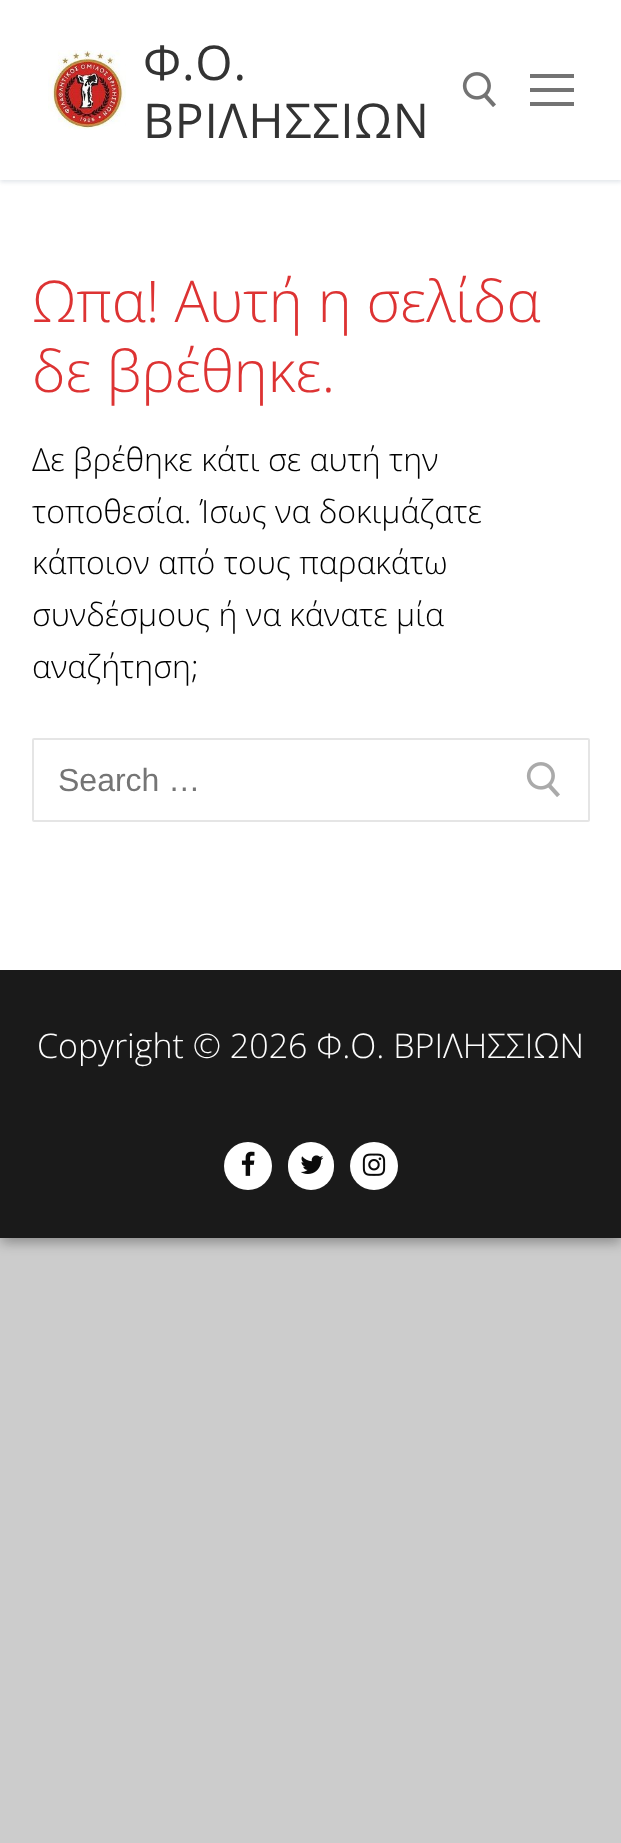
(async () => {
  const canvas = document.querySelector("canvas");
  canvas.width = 621;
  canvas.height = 1843;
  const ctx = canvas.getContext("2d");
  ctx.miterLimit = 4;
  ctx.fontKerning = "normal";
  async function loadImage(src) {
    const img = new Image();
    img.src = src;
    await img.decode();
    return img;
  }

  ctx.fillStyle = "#cccccc";
  ctx.fillRect(0, 0, 621, 1843);
  ctx.fillStyle = "rgba(0, 0, 0, 0.23)";
  ctx.filter = "blur(6px)";
  ctx.beginPath();
  ctx.rect(0, 6, 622, 1238);
  ctx.fill();
  ctx.filter = "none";
  ctx.fillStyle = "rgba(0, 0, 0, 0.16)";
  ctx.filter = "blur(6px)";
  ctx.beginPath();
  ctx.rect(8, 14, 606, 1222);
  ctx.fill();
  ctx.filter = "none";
  ctx.fillStyle = "#ffffff";
  ctx.fillRect(0, 180, 621, 790);
  ctx.fillStyle = "#e1e5ea";
  ctx.filter = "blur(2px)";
  ctx.beginPath();
  ctx.rect(0, 2, 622, 180);
  ctx.fill();
  ctx.filter = "none";
  ctx.fillStyle = "#ffffff";
  ctx.fillRect(0, 0, 621, 180);
  ctx.drawImage(await loadImage("img/1.png"), 48, 50, 78, 80);
  ctx.drawImage(await loadImage("img/2.png"), 462, 72, 34, 35);
  for (const [x, y, w, h, color] of [
    [530, 88, 44, 4, "#737373"],
    [530, 74, 44, 4, "#737373"],
    [530, 102, 44, 4, "#737373"],
  ]) {
    ctx.fillStyle = color;
    ctx.fillRect(x, y, w, h);
  }
  ctx.beginPath();
  ctx.roundRect(33, 739, 556, 82, 1);
  ctx.strokeStyle = "#e5e5e5";
  ctx.lineWidth = 2;
  ctx.stroke();
  ctx.drawImage(await loadImage("img/3.png"), 526, 762, 34, 35);
  ctx.fillStyle = "#1a1a1a";
  ctx.fillRect(0, 970, 621, 268);
  ctx.fillStyle = "#ffffff";
  ctx.beginPath();
  ctx.arc(248, 1166, 24, 0, Math.PI * 2);
  ctx.fill();
  ctx.drawImage(await loadImage("img/4.png"), 241, 1151, 14, 25);
  ctx.beginPath();
  ctx.roundRect(288, 1142, 46, 48, 23);
  ctx.fill();
  ctx.drawImage(await loadImage("img/5.png"), 300, 1155, 24, 19);
  ctx.beginPath();
  ctx.arc(374, 1166, 24, 0, Math.PI * 2);
  ctx.fill();
  ctx.drawImage(await loadImage("img/6.png"), 362, 1153, 24, 23);
  ctx.letterSpacing = "0.75px";
  ctx.font = "48px Open Sans";
  ctx.fillStyle = "#333333";
  ctx.fillText("Φ.Ο.", 143, 80);
  ctx.fillText("ΒΡΙΛΗΣΣΙΩΝ", 143, 138);
  ctx.letterSpacing = "0px";
  ctx.font = "300 57.5px Open Sans";
  ctx.fillStyle = "#dd3333";
  ctx.fillText("Ωπα! Αυτή η σελίδα", 32, 322);
  ctx.fillText("δε βρέθηκε.", 32, 392);
  ctx.font = "300 32px Open Sans";
  ctx.fillStyle = "#000000";
  for (const [text, x, y] of [
    ["Δε βρέθηκε κάτι σε αυτή την", 32, 471],
    ["τοποθεσία. Ίσως να δοκιμάζατε", 32, 523],
    ["κάποιον από τους παρακάτω", 32, 574],
    ["συνδέσμους ή να κάνατε μία", 32, 626],
    ["αναζήτηση;", 32, 678],
  ]) {
    ctx.fillText(text, x, y);
  }
  ctx.font = "32px Liberation Sans";
  ctx.fillStyle = "#757575";
  ctx.fillText("Search …", 58, 791);
  ctx.font = "300 34px Open Sans";
  ctx.fillStyle = "#fdfdfd";
  ctx.fillText("Copyright © 2026 Φ.Ο. ΒΡΙΛΗΣΣΙΩΝ", 37, 1058);
})();
